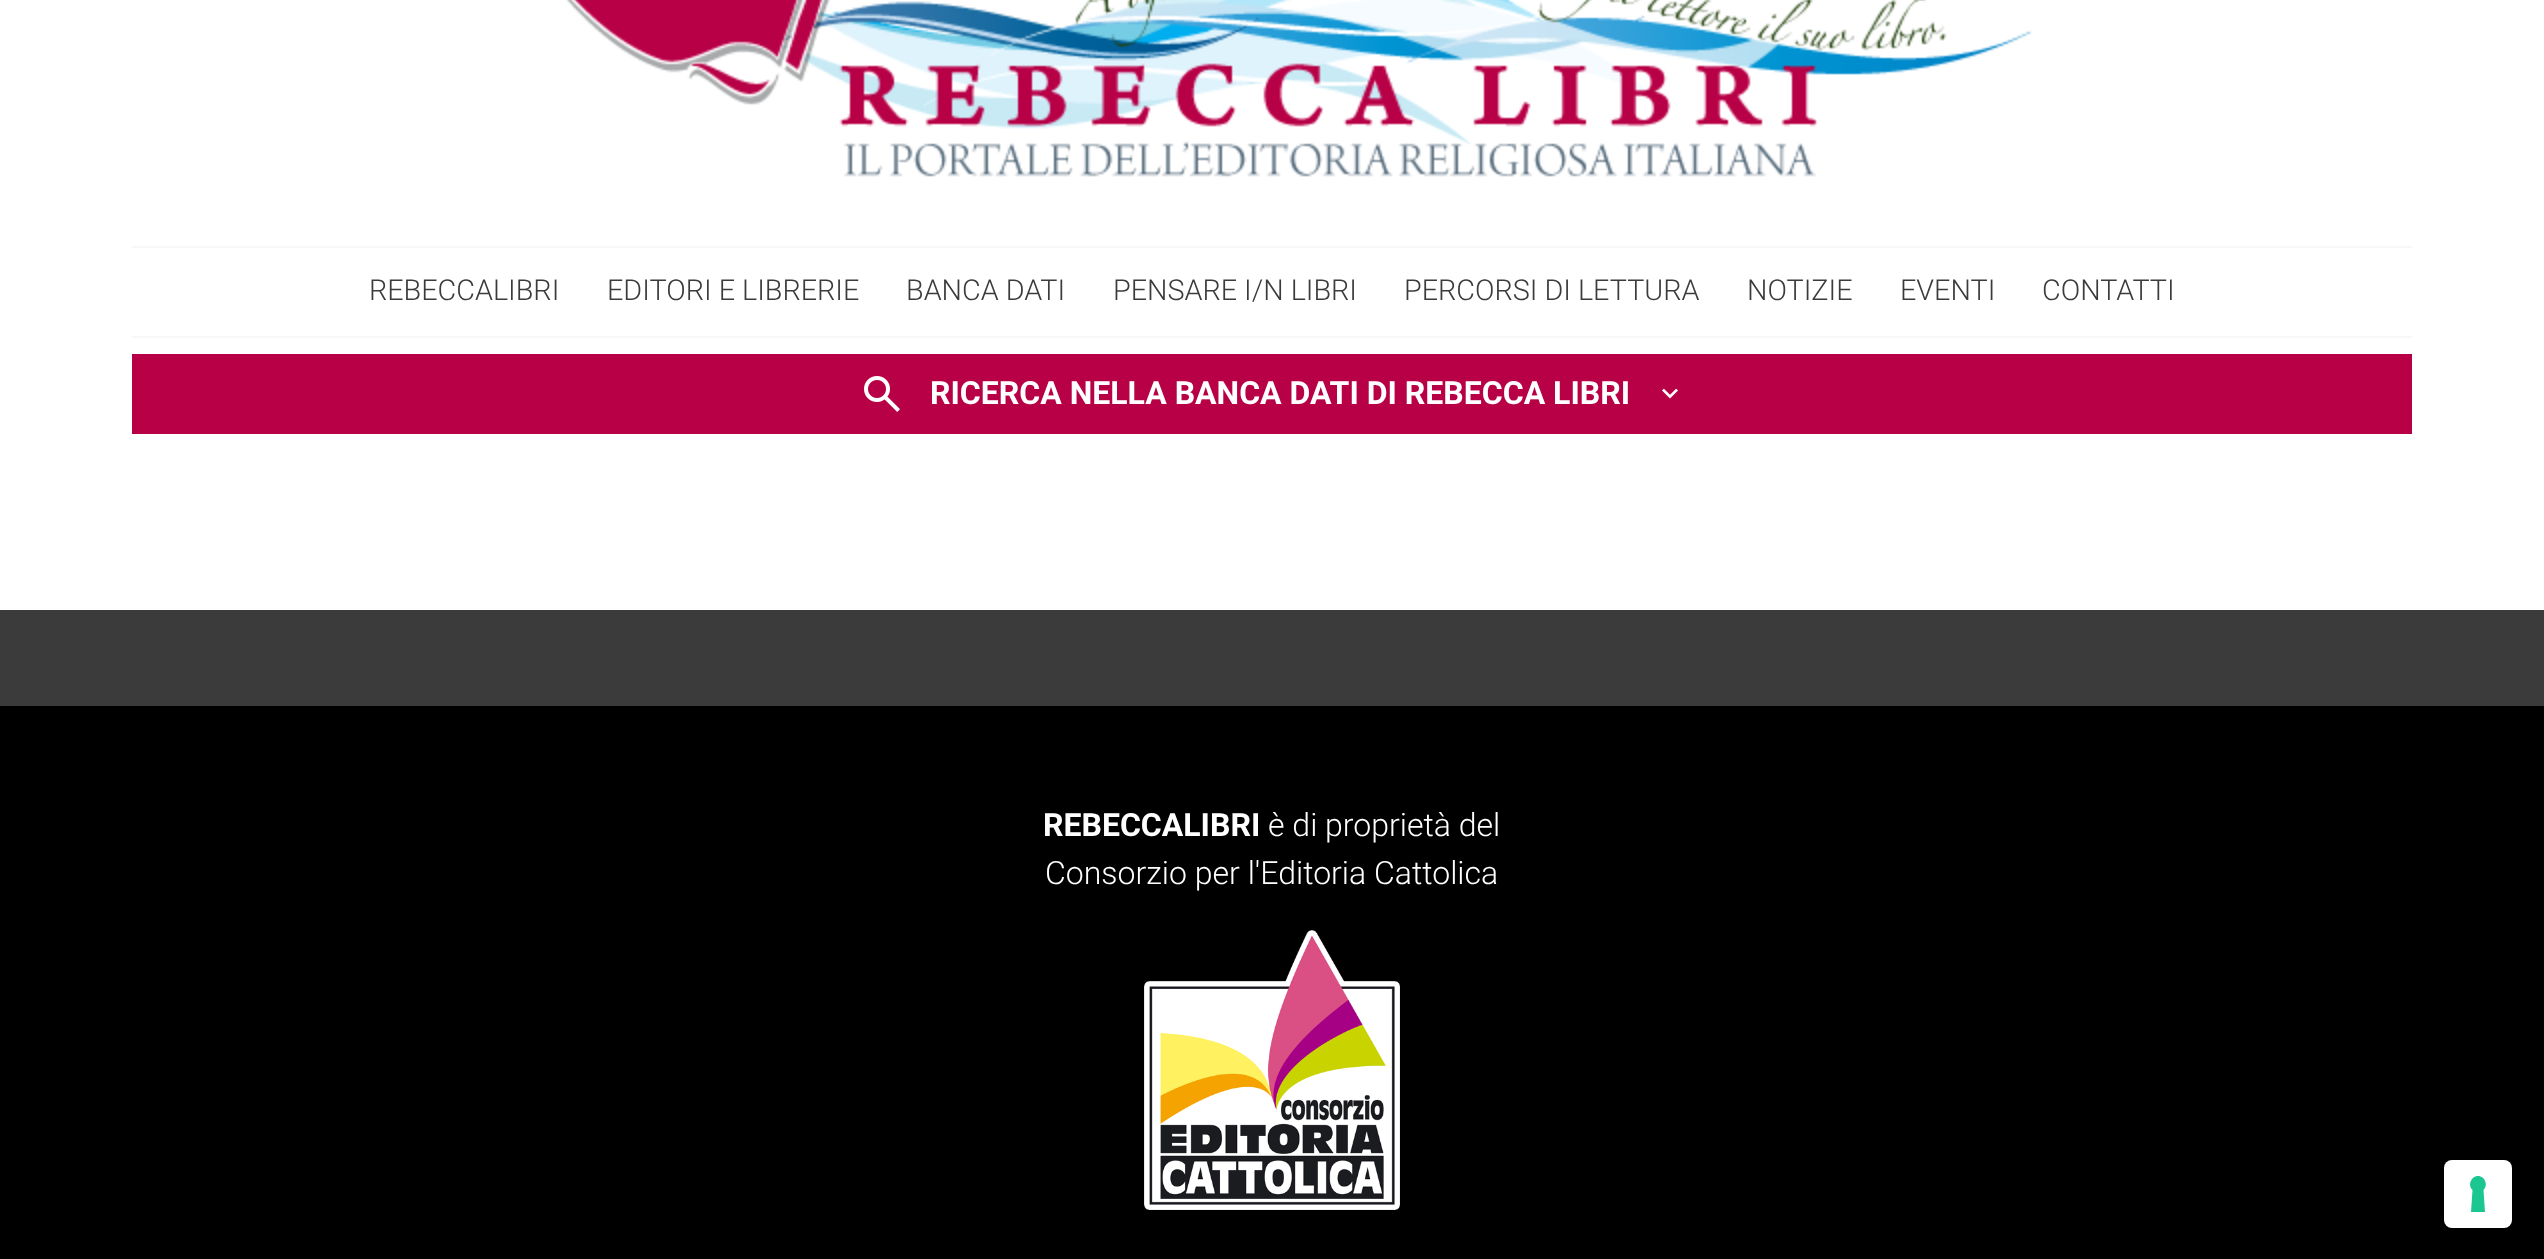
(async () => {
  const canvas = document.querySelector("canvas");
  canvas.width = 2544;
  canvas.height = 1259;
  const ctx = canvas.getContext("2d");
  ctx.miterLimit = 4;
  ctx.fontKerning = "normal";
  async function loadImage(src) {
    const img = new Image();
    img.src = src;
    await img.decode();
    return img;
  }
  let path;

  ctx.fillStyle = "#ffffff";
  ctx.fillRect(0, 0, 2544, 1259);
  ctx.drawImage(await loadImage("img/1.png"), 566, 0, 1466, 177);
  for (const [x, y, w, h, color] of [
    [132, 246, 2280, 2, "#f7f7f7"],
    [132, 336, 2280, 2, "#f7f7f7"],
    [132, 354, 2280, 80, "#b80047"],
  ]) {
    ctx.fillStyle = color;
    ctx.fillRect(x, y, w, h);
  }
  ctx.drawImage(await loadImage("img/2.png"), 864, 376, 36, 36);
  ctx.drawImage(await loadImage("img/3.png"), 1662, 388, 16, 11);
  ctx.fillStyle = "#3b3b3b";
  ctx.fillRect(0, 610, 2544, 96);
  ctx.fillStyle = "#000000";
  ctx.fillRect(0, 706, 2544, 553);
  ctx.drawImage(await loadImage("img/4.png"), 1144, 930, 256, 280);
  ctx.fillStyle = "#ffffff";
  ctx.beginPath();
  ctx.roundRect(2444, 1160, 68, 68, 8);
  ctx.fill();
  ctx.fillStyle = "#1cc691";
  path = new Path2D("M2478 1176C2485 1176 2488.5 1185.5 2483.5 1190L2485 1212H2471L2472.5 1190C2467.5 1185.5 2471 1176 2478 1176Z");
  ctx.fill(path, "evenodd");
  ctx.font = "300 28.75px Roboto";
  ctx.fillStyle = "#3b3b3b";
  for (const [text, x, y] of [
    ["REBECCALIBRI", 369, 300],
    ["EDITORI E LIBRERIE", 607, 300],
    ["BANCA DATI", 906, 300],
    ["PENSARE I/N LIBRI", 1113, 300],
    ["PERCORSI DI LETTURA", 1404, 300],
    ["NOTIZIE", 1747, 300],
    ["EVENTI", 1900, 300],
    ["CONTATTI", 2042, 300],
  ]) {
    ctx.fillText(text, x, y);
  }
  ctx.font = "bold 32px Roboto";
  ctx.fillStyle = "#ffffff";
  ctx.fillText("RICERCA NELLA BANCA DATI DI REBECCA LIBRI", 930, 404);
  ctx.fillText("REBECCALIBRI", 1043, 836);
  ctx.font = "300 32px Roboto";
  ctx.fillText("è di proprietà del", 1268, 836);
  ctx.fillText("Consorzio per l'Editoria Cattolica", 1045, 884);
})();
